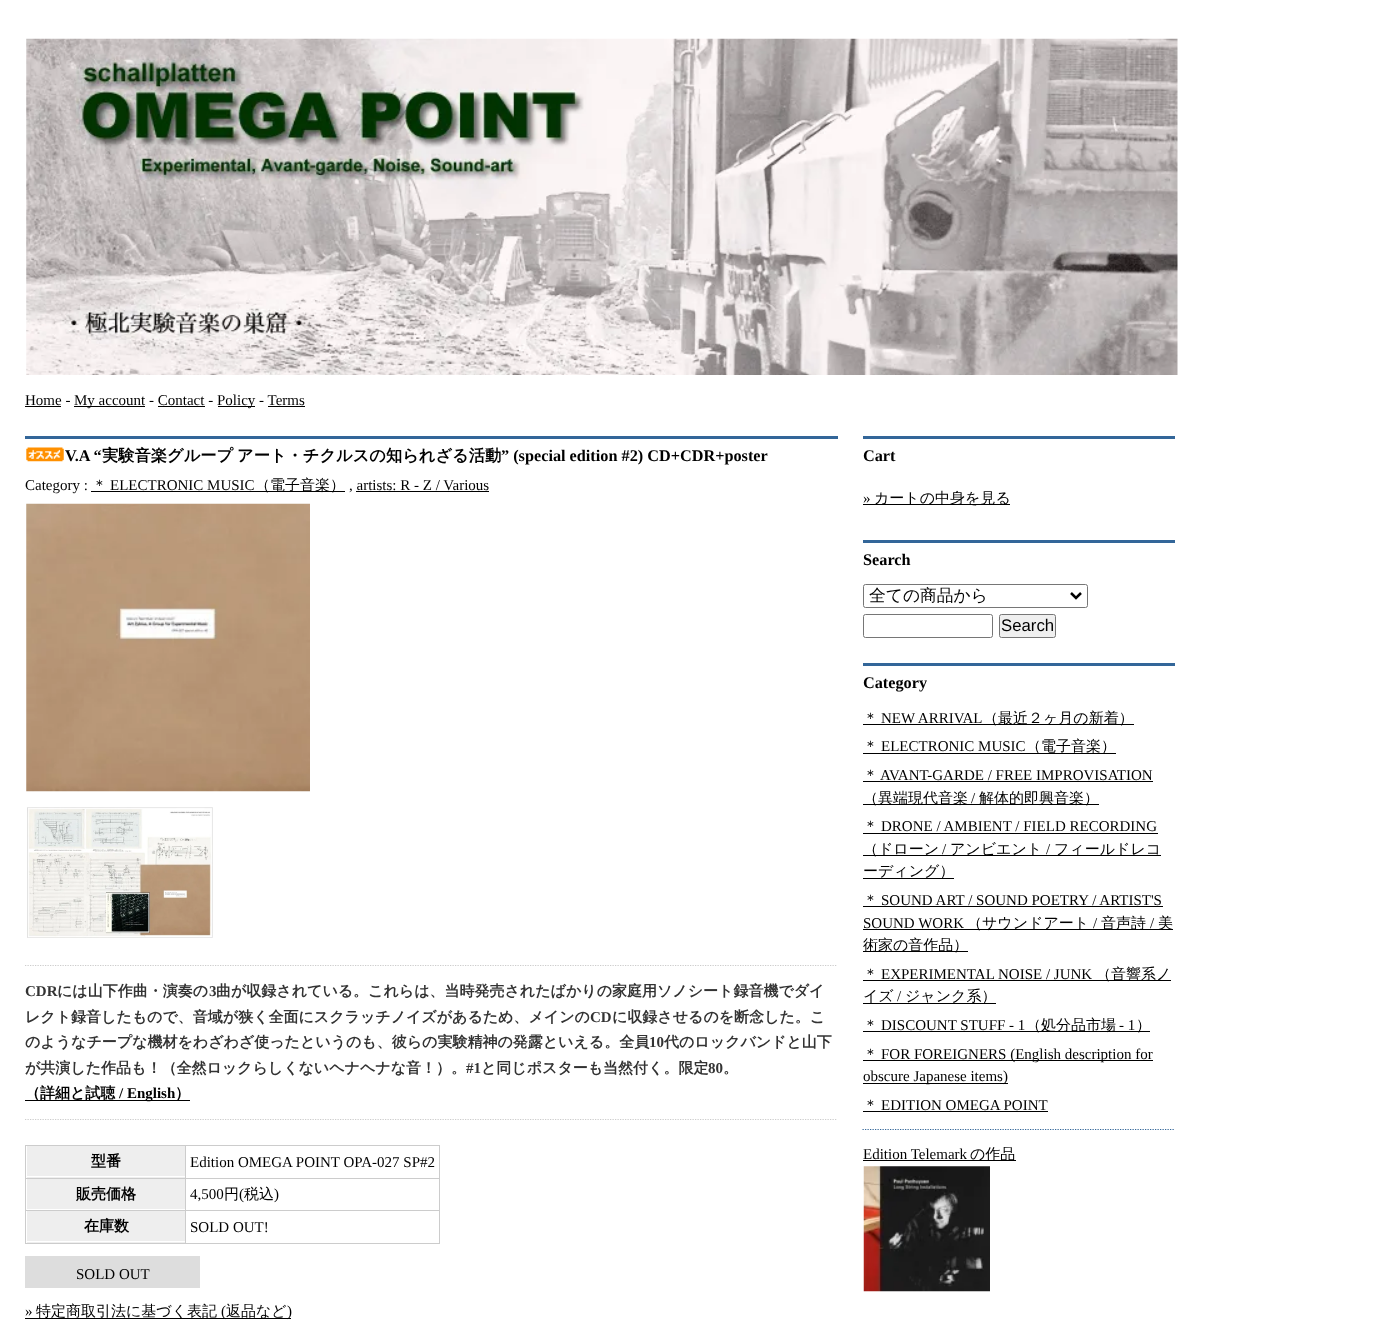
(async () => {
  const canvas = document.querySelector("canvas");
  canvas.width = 1392;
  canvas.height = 1322;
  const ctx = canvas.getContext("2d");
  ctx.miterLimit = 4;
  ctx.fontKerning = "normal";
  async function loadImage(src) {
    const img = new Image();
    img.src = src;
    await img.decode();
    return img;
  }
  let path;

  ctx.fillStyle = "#ffffff";
  ctx.fillRect(0, 0, 1392, 1322);
  ctx.drawImage(await loadImage("img/1.png"), 26, 38, 1152, 337);
  for (const [x, y, w, h, color] of [
    [25, 406, 36, 1, "#000000"],
    [74, 406, 71, 1, "#000000"],
    [218, 406, 37, 1, "#000000"],
    [158, 406, 47, 1, "#000000"],
    [268, 406, 37, 1, "#000000"],
    [25, 436, 813, 3, "#336699"],
  ]) {
    ctx.fillStyle = color;
    ctx.fillRect(x, y, w, h);
  }
  ctx.drawImage(await loadImage("img/2.png"), 26, 447, 38, 15);
  ctx.fillStyle = "#000000";
  ctx.fillRect(91, 491, 254, 1);
  ctx.fillRect(356, 491, 133, 1);
  ctx.drawImage(await loadImage("img/3.png"), 26, 503, 284, 289);
  ctx.drawImage(await loadImage("img/4.png"), 27, 807, 186, 131);
  path = new Path2D("M25 965.5H837.5");
  ctx.strokeStyle = "#cccccc";
  ctx.lineWidth = 1.2;
  ctx.setLineDash([1.25, 1.25]);
  ctx.stroke(path);
  path = new Path2D("M25 1119.5H837.5");
  ctx.stroke(path);
  for (const [x, y, w, h, color] of [
    [25, 1100, 165, 1, "#000000"],
    [25, 1145, 415, 99, "#cccccc"],
    [27, 1146, 158, 32, "#eeeeee"],
    [26, 1176, 159, 1, "#ffffff"],
    [26, 1146, 1, 32, "#ffffff"],
    [186, 1146, 253, 32, "#ffffff"],
    [27, 1179, 158, 30, "#eeeeee"],
    [26, 1209, 159, 1, "#ffffff"],
    [26, 1179, 1, 31, "#ffffff"],
    [186, 1179, 253, 31, "#ffffff"],
    [27, 1211, 158, 32, "#eeeeee"],
    [26, 1241, 159, 1, "#ffffff"],
    [26, 1211, 1, 32, "#ffffff"],
    [186, 1211, 253, 32, "#ffffff"],
    [25, 1256, 175, 32, "#dddddd"],
    [25, 1318, 266, 1, "#000000"],
    [863, 436, 312, 3, "#336699"],
    [863, 504, 147, 1, "#000000"],
    [863, 540, 312, 3, "#336699"],
  ]) {
    ctx.fillStyle = color;
    ctx.fillRect(x, y, w, h);
  }
  ctx.beginPath();
  ctx.roundRect(863.5, 584.5, 224, 23, 2);
  ctx.strokeStyle = "#767676";
  ctx.lineWidth = 1;
  ctx.setLineDash([]);
  ctx.stroke();
  path = new Path2D("M1071 593L1076 598L1081 593");
  ctx.strokeStyle = "#000000";
  ctx.lineWidth = 2.5;
  ctx.stroke(path);
  ctx.beginPath();
  ctx.roundRect(863.5, 614.5, 129, 23, 2);
  ctx.strokeStyle = "#767676";
  ctx.lineWidth = 1;
  ctx.stroke();
  ctx.fillStyle = "#efefef";
  ctx.beginPath();
  ctx.roundRect(999.5, 614.5, 56, 23, 2);
  ctx.fill();
  ctx.stroke();
  for (const [x, y, w, h, color] of [
    [863, 663, 312, 3, "#336699"],
    [863, 724, 271, 1, "#000000"],
    [863, 753, 253, 1, "#000000"],
    [863, 781, 290, 1, "#000000"],
    [863, 804, 236, 1, "#000000"],
    [863, 833, 295, 1, "#000000"],
    [863, 855, 298, 1, "#000000"],
    [863, 878, 91, 1, "#000000"],
    [863, 906, 300, 1, "#000000"],
    [863, 929, 310, 1, "#000000"],
    [863, 951, 105, 1, "#000000"],
    [863, 980, 308, 1, "#000000"],
    [863, 1003, 133, 1, "#000000"],
    [863, 1031, 287, 1, "#000000"],
    [863, 1060, 290, 1, "#000000"],
    [863, 1083, 145, 1, "#000000"],
    [863, 1111, 185, 1, "#000000"],
  ]) {
    ctx.fillStyle = color;
    ctx.fillRect(x, y, w, h);
  }
  path = new Path2D("M862.5 1129.5H1175");
  ctx.strokeStyle = "#336699";
  ctx.lineWidth = 1.2;
  ctx.setLineDash([1.25, 1.25]);
  ctx.stroke(path);
  ctx.fillRect(863, 1160, 153, 1);
  ctx.drawImage(await loadImage("img/5.png"), 863, 1166, 127, 126);
  ctx.font = "15px Liberation Serif";
  for (const [text, x, y] of [
    ["Home -", 25, 405],
    ["My account - Contact -", 74, 405],
    ["Policy - Terms", 217, 405],
  ]) {
    ctx.fillText(text, x, y);
  }
  ctx.font = "bold 16.25px Liberation Serif";
  ctx.fillText("V.A “", 65, 461);
  ctx.font = "bold 16.25px WenQuanYi Zen Hei";
  ctx.fillText("実験音楽グループ", 102, 461);
  ctx.fillText("アート・チクルスの知られざる活動", 237, 461);
  ctx.font = "bold 16.25px Liberation Serif";
  ctx.fillText("” (special edition #2) CD+CDR+poster", 501, 461);
  ctx.font = "15px Liberation Serif";
  ctx.fillText("Category :", 25, 490);
  ctx.font = "500 15px WenQuanYi Zen Hei";
  ctx.fillText("＊", 92, 490);
  ctx.font = "15px Liberation Serif";
  ctx.fillText("ELECTRONIC MUSIC", 110, 490);
  ctx.font = "500 15px WenQuanYi Zen Hei";
  ctx.fillText("（電子音楽）", 255, 490);
  ctx.font = "15px Liberation Serif";
  ctx.fillText(", artists: R - Z / Various", 349, 490);
  ctx.font = "bold 15px Liberation Serif";
  ctx.fillStyle = "#333333";
  ctx.fillText("CDR", 25, 996);
  ctx.font = "bold 15px WenQuanYi Zen Hei";
  ctx.fillText("には山下作曲・演奏の", 57, 996);
  ctx.font = "bold 15px Liberation Serif";
  ctx.fillText("3", 209, 996);
  ctx.font = "bold 15px WenQuanYi Zen Hei";
  ctx.fillText("曲が収録されている。これらは、当時発売されたばかりの家庭用ソノシート録音機でダイ", 216, 996);
  ctx.fillText("レクト録音したもので、音域が狭く全面にスクラッチノイズがあるため、メインの", 25, 1022);
  ctx.font = "bold 15px Liberation Serif";
  ctx.fillText("CD", 590, 1022);
  ctx.font = "bold 15px WenQuanYi Zen Hei";
  ctx.fillText("に収録させるのを断念した。こ", 612, 1022);
  ctx.fillText("のようなチープな機材をわざわざ使ったというのも、彼らの実験精神の発露といえる。全員", 25, 1047);
  ctx.font = "bold 15px Liberation Serif";
  ctx.fillText("10", 649, 1047);
  ctx.font = "bold 15px WenQuanYi Zen Hei";
  ctx.fillText("代のロックバンドと山下", 664, 1047);
  ctx.fillText("が共演した作品も！（全然ロックらしくないヘナヘナな音！）。", 25, 1073);
  ctx.font = "bold 15px Liberation Serif";
  ctx.fillText("#1", 466, 1073);
  ctx.font = "bold 15px WenQuanYi Zen Hei";
  ctx.fillText("と同じポスターも当然付く。限定", 481, 1073);
  ctx.font = "bold 15px Liberation Serif";
  ctx.fillText("80", 708, 1073);
  ctx.font = "bold 15px WenQuanYi Zen Hei";
  ctx.fillText("。", 723, 1073);
  ctx.fillStyle = "#000000";
  ctx.fillText("（詳細と試聴", 25, 1098);
  ctx.font = "bold 15px Liberation Serif";
  ctx.fillText("/ English", 119, 1098);
  ctx.font = "bold 15px WenQuanYi Zen Hei";
  ctx.fillText("）", 175, 1098);
  ctx.fillText("型番", 91, 1166);
  ctx.font = "15px Liberation Serif";
  ctx.fillText("Edition OMEGA POINT OPA-027 SP#2", 190, 1167);
  ctx.font = "bold 15px WenQuanYi Zen Hei";
  ctx.fillText("販売価格", 76, 1199);
  ctx.font = "15px Liberation Serif";
  ctx.fillText("4,500", 190, 1199);
  ctx.font = "500 15px WenQuanYi Zen Hei";
  ctx.fillText("円", 224, 1199);
  ctx.font = "15px Liberation Serif";
  ctx.fillText("(", 239, 1199);
  ctx.font = "500 15px WenQuanYi Zen Hei";
  ctx.fillText("税込", 244, 1199);
  ctx.font = "15px Liberation Serif";
  ctx.fillText(")", 274, 1199);
  ctx.font = "bold 15px WenQuanYi Zen Hei";
  ctx.fillText("在庫数", 84, 1231);
  ctx.font = "15px Liberation Serif";
  for (const [text, x, y] of [
    ["SOLD OUT!", 190, 1232],
    ["SOLD OUT", 76, 1279],
    ["»", 25, 1316],
  ]) {
    ctx.fillText(text, x, y);
  }
  ctx.font = "500 15px WenQuanYi Zen Hei";
  ctx.fillText("特定商取引法に基づく表記", 36, 1316);
  ctx.font = "15px Liberation Serif";
  ctx.fillText("(", 221, 1316);
  ctx.font = "500 15px WenQuanYi Zen Hei";
  ctx.fillText("返品など", 226, 1316);
  ctx.font = "15px Liberation Serif";
  ctx.fillText(")", 287, 1316);
  ctx.font = "bold 16.25px Liberation Serif";
  ctx.fillText("Cart", 863, 461);
  ctx.font = "15px Liberation Serif";
  ctx.fillText("»", 863, 503);
  ctx.font = "500 15px WenQuanYi Zen Hei";
  ctx.fillText("カートの中身を見る", 874, 503);
  ctx.font = "bold 16.25px Liberation Serif";
  ctx.fillText("Search", 863, 565);
  ctx.font = "500 16.75px WenQuanYi Zen Hei";
  ctx.fillText("全ての商品から", 869, 601);
  ctx.font = "16.75px Liberation Sans";
  ctx.fillText("Search", 1001, 631);
  ctx.font = "bold 16.25px Liberation Serif";
  ctx.fillText("Category", 863, 688);
  ctx.font = "500 15px WenQuanYi Zen Hei";
  ctx.fillText("＊", 863, 723);
  ctx.font = "15px Liberation Serif";
  ctx.fillText("NEW ARRIVAL", 881, 723);
  ctx.font = "500 15px WenQuanYi Zen Hei";
  ctx.fillText("（最近２ヶ月の新着）", 983, 723);
  ctx.fillText("＊", 863, 751);
  ctx.font = "15px Liberation Serif";
  ctx.fillText("ELECTRONIC MUSIC", 881, 751);
  ctx.font = "500 15px WenQuanYi Zen Hei";
  ctx.fillText("（電子音楽）", 1026, 751);
  ctx.fillText("＊", 863, 780);
  ctx.font = "15px Liberation Serif";
  ctx.fillText("AVANT-GARDE / FREE IMPROVISATION", 880, 780);
  ctx.font = "500 15px WenQuanYi Zen Hei";
  ctx.fillText("（異端現代音楽", 863, 803);
  ctx.font = "15px Liberation Serif";
  ctx.fillText("/", 971, 803);
  ctx.font = "500 15px WenQuanYi Zen Hei";
  ctx.fillText("解体的即興音楽）", 979, 803);
  ctx.fillText("＊", 863, 831);
  ctx.font = "15px Liberation Serif";
  ctx.fillText("DRONE / AMBIENT / FIELD RECORDING", 881, 831);
  ctx.font = "500 15px WenQuanYi Zen Hei";
  ctx.fillText("（ドローン", 863, 854);
  ctx.font = "15px Liberation Serif";
  ctx.fillText("/", 942, 854);
  ctx.font = "500 15px WenQuanYi Zen Hei";
  ctx.fillText("アンビエント", 950, 854);
  ctx.font = "15px Liberation Serif";
  ctx.fillText("/", 1046, 854);
  ctx.font = "500 15px WenQuanYi Zen Hei";
  for (const [text, x, y] of [
    ["フィールドレコ", 1054, 854],
    ["ーディング）", 863, 876],
    ["＊", 863, 905],
  ]) {
    ctx.fillText(text, x, y);
  }
  ctx.font = "15px Liberation Serif";
  ctx.fillText("SOUND ART / SOUND POETRY / ARTIST'S", 881, 905);
  ctx.fillText("SOUND WORK", 863, 928);
  ctx.font = "500 15px WenQuanYi Zen Hei";
  ctx.fillText("（サウンドアート", 967, 928);
  ctx.font = "15px Liberation Serif";
  ctx.fillText("/", 1093, 928);
  ctx.font = "500 15px WenQuanYi Zen Hei";
  ctx.fillText("音声詩", 1101, 928);
  ctx.font = "15px Liberation Serif";
  ctx.fillText("/", 1150, 928);
  ctx.font = "500 15px WenQuanYi Zen Hei";
  for (const [text, x, y] of [
    ["美", 1158, 928],
    ["術家の音作品）", 863, 950],
    ["＊", 863, 979],
  ]) {
    ctx.fillText(text, x, y);
  }
  ctx.font = "15px Liberation Serif";
  ctx.fillText("EXPERIMENTAL NOISE / JUNK", 881, 979);
  ctx.font = "500 15px WenQuanYi Zen Hei";
  ctx.fillText("（音響系ノ", 1096, 979);
  ctx.fillText("イズ", 863, 1001);
  ctx.font = "15px Liberation Serif";
  ctx.fillText("/", 897, 1001);
  ctx.font = "500 15px WenQuanYi Zen Hei";
  ctx.fillText("ジャンク系）", 905, 1001);
  ctx.fillText("＊", 863, 1030);
  ctx.font = "15px Liberation Serif";
  ctx.fillText("DISCOUNT STUFF - 1", 881, 1030);
  ctx.font = "500 15px WenQuanYi Zen Hei";
  ctx.fillText("（処分品市場", 1026, 1030);
  ctx.font = "15px Liberation Serif";
  ctx.fillText("- 1", 1119, 1030);
  ctx.font = "500 15px WenQuanYi Zen Hei";
  ctx.fillText("）", 1136, 1030);
  ctx.fillText("＊", 863, 1059);
  ctx.font = "15px Liberation Serif";
  ctx.fillText("FOR FOREIGNERS (English description for", 881, 1059);
  ctx.fillText("obscure Japanese items)", 863, 1081);
  ctx.font = "500 15px WenQuanYi Zen Hei";
  ctx.fillText("＊", 863, 1110);
  ctx.font = "15px Liberation Serif";
  ctx.fillText("EDITION OMEGA POINT", 881, 1110);
  ctx.fillText("Edition Telemark", 863, 1159);
  ctx.font = "500 15px WenQuanYi Zen Hei";
  ctx.fillText("の作品", 970, 1159);
})();
